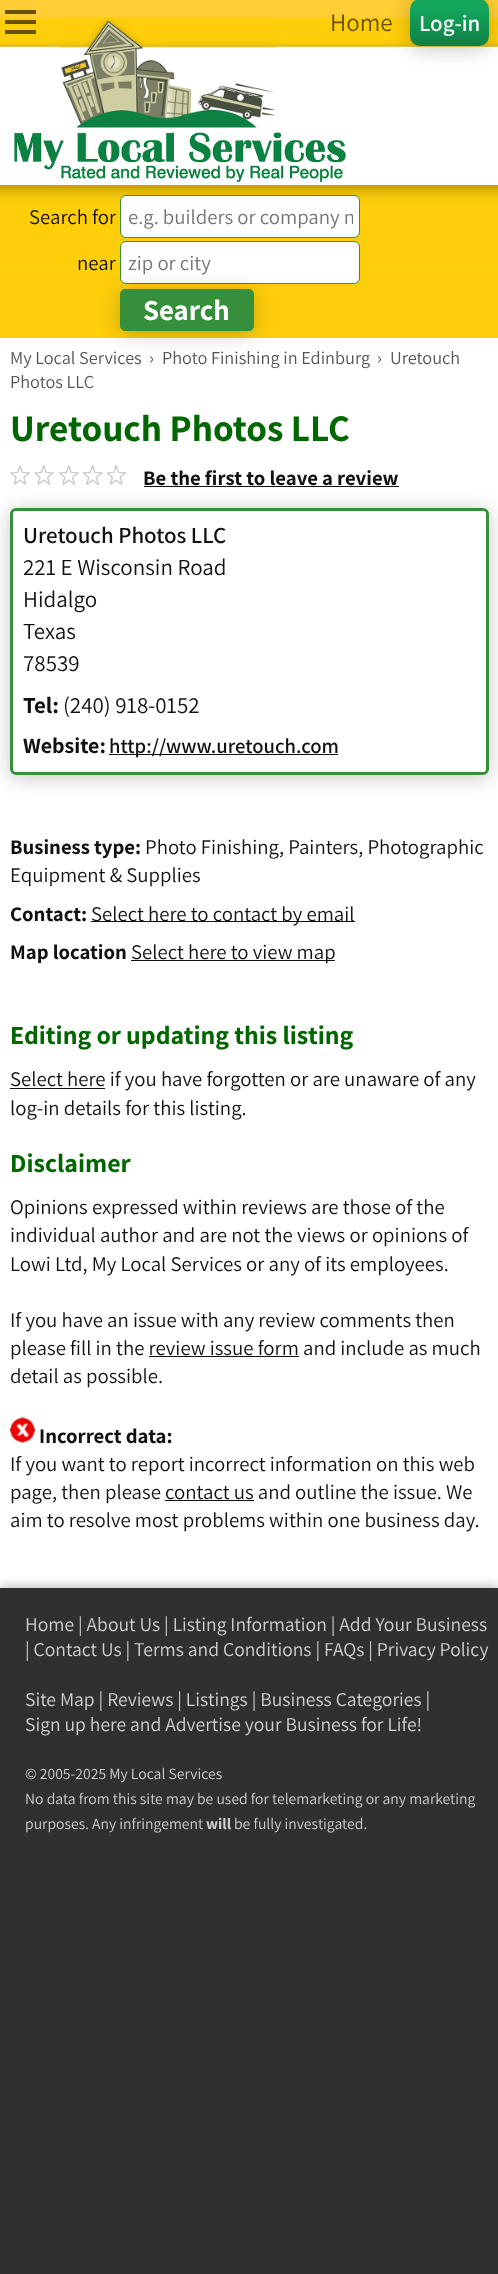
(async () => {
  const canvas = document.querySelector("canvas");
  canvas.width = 498;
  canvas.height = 2274;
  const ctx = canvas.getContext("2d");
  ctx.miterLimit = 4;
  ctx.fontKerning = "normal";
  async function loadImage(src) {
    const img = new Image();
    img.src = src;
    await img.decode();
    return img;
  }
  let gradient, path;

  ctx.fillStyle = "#ffffff";
  ctx.fillRect(0, 0, 498, 2274);
  ctx.fillStyle = "#ffcd34";
  ctx.fillRect(0, 0, 498, 18);
  ctx.drawImage(await loadImage("img/1.png"), 0, 17, 498, 30);
  for (const [x, y, w, h, color] of [
    [5, 10, 31, 4, "#665200"],
    [5, 20, 31, 4, "#665200"],
    [5, 30, 31, 4, "#665200"],
  ]) {
    ctx.fillStyle = color;
    ctx.fillRect(x, y, w, h);
  }
  ctx.drawImage(await loadImage("img/2.png"), 60, 17, 217, 111);
  ctx.drawImage(await loadImage("img/3.png"), 14, 132, 332, 50);
  ctx.fillStyle = "rgba(0, 0, 0, 0.22)";
  ctx.filter = "blur(10px)";
  ctx.beginPath();
  ctx.roundRect(410, 1, 79, 48, 10);
  ctx.fill();
  ctx.filter = "none";
  gradient = ctx.createLinearGradient(449, -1.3, 449, 46);
  gradient.addColorStop(0, "#13a55a");
  gradient.addColorStop(0.23, "#13a55a");
  gradient.addColorStop(1, "#0f7f46");
  ctx.fillStyle = gradient;
  ctx.beginPath();
  ctx.roundRect(410, -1, 79, 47, 10);
  ctx.fill();
  ctx.fillStyle = "#fece0b";
  ctx.fillRect(0, 268, 498, 70);
  ctx.drawImage(await loadImage("img/4.png"), 0, 185, 498, 84);
  ctx.fillStyle = "#ffffff";
  ctx.beginPath();
  ctx.roundRect(120.5, 195.5, 239, 42, 5.5);
  ctx.fill();
  ctx.strokeStyle = "#36903b";
  ctx.stroke();
  ctx.beginPath();
  ctx.roundRect(120.5, 241.5, 239, 42, 5.5);
  ctx.fill();
  ctx.stroke();
  ctx.fillStyle = "rgba(0, 0, 0, 0.22)";
  ctx.filter = "blur(10px)";
  ctx.beginPath();
  ctx.roundRect(120, 291, 134, 43, 5);
  ctx.fill();
  ctx.filter = "none";
  ctx.fillStyle = "#36903b";
  ctx.beginPath();
  ctx.roundRect(120.5, 289.5, 133, 41, 4.5);
  ctx.fill();
  ctx.stroke();
  ctx.save();
  path = new Path2D("M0 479H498V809H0ZM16 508H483C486.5 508 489 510.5 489 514V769C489 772.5 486.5 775 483 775H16C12.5 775 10 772.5 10 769V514C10 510.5 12.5 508 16 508Z");
  ctx.clip(path, "evenodd");
  ctx.fillStyle = "rgba(0, 0, 0, 0.22)";
  ctx.filter = "blur(10px)";
  ctx.beginPath();
  ctx.roundRect(10, 510, 479, 268, 6);
  ctx.fill();
  ctx.filter = "none";
  ctx.restore();
  ctx.drawImage(await loadImage("img/5.png"), 10, 465, 20, 20);
  ctx.drawImage(await loadImage("img/6.png"), 34, 465, 20, 20);
  ctx.drawImage(await loadImage("img/6.png"), 59, 465, 20, 20);
  ctx.drawImage(await loadImage("img/7.png"), 83, 465, 20, 20);
  ctx.drawImage(await loadImage("img/8.png"), 107, 465, 20, 20);
  ctx.fillStyle = "#111111";
  ctx.fillRect(144, 486, 255, 1);
  ctx.beginPath();
  ctx.roundRect(11.5, 509.5, 476, 264, 4.5);
  ctx.lineWidth = 3;
  ctx.stroke();
  for (const [x, y, w, h, color] of [
    [109, 754, 229, 1, "#111111"],
    [91, 921, 264, 1, "#111111"],
    [131, 960, 204, 1, "#111111"],
    [10, 1088, 95, 1, "#111111"],
    [149, 1356, 150, 1, "#111111"],
  ]) {
    ctx.fillStyle = color;
    ctx.fillRect(x, y, w, h);
  }
  ctx.drawImage(await loadImage("img/9.png"), 10, 1417, 25, 26);
  ctx.fillRect(165, 1500, 89, 1);
  ctx.fillStyle = "rgba(0, 0, 0, 0.22)";
  ctx.filter = "blur(5px)";
  ctx.beginPath();
  ctx.rect(0, 1585, 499, 259);
  ctx.fill();
  ctx.filter = "none";
  ctx.fillStyle = "#303030";
  ctx.fillRect(0, 1588, 498, 258);
  path = new Path2D("M-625 1588V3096H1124V1588H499V1846H0V1588Z");
  ctx.fill(path);
  ctx.font = "25px Assistant";
  ctx.fillStyle = "#665200";
  ctx.fillText("Home", 330, 31);
  ctx.font = "600 23px Assistant";
  ctx.fillStyle = "#ffffff";
  ctx.fillText("Log-in", 419, 31);
  ctx.font = "20.8px Assistant";
  ctx.fillStyle = "#111111";
  ctx.fillText("Search for", 29, 224);
  ctx.save();
  ctx.beginPath();
  ctx.rect(128, 203, 225, 27);
  ctx.clip();
  ctx.fillStyle = "#757575";
  ctx.fillText("e.g. builders or company n", 128, 224);
  ctx.restore();
  ctx.fillText("near", 77, 270);
  ctx.fillStyle = "#757575";
  ctx.fillText("zip or city", 128, 270);
  ctx.font = "bold 29px Assistant";
  ctx.fillStyle = "#ffffff";
  ctx.fillText("Search", 143, 320);
  ctx.font = "18.25px Assistant";
  ctx.fillStyle = "#555555";
  for (const [text, x, y] of [
    ["My Local Services", 10, 364],
    ["›", 149, 364],
    ["Photo Finishing in Edinburg", 162, 364],
    ["›", 377, 364],
    ["Uretouch", 390, 364],
    ["Photos LLC", 10, 388],
  ]) {
    ctx.fillText(text, x, y);
  }
  ctx.font = "bold 37.5px Assistant";
  ctx.fillStyle = "#006600";
  ctx.fillText("Uretouch Photos LLC", 10, 441);
  ctx.font = "bold 20.8px Assistant";
  ctx.fillStyle = "#111111";
  ctx.fillText("Be the first to leave a review", 143, 485);
  ctx.font = "600 23px Assistant";
  ctx.fillText("Uretouch Photos LLC", 23, 543);
  ctx.font = "23px Assistant";
  for (const [text, x, y] of [
    ["221 E Wisconsin Road", 23, 575],
    ["Hidalgo", 23, 607],
    ["Texas", 23, 639],
    ["78539", 23, 671],
  ]) {
    ctx.fillText(text, x, y);
  }
  ctx.font = "bold 23px Assistant";
  ctx.fillText("Tel:", 23, 713);
  ctx.font = "23px Assistant";
  ctx.fillText("(240) 918-0152", 63, 713);
  ctx.font = "bold 22px Assistant";
  ctx.fillText("Website:", 23, 753);
  ctx.font = "600 20.75px Assistant";
  ctx.fillText("http://www.uretouch.com", 109, 753);
  ctx.font = "bold 20.8px Assistant";
  ctx.fillText("Business type:", 10, 854);
  ctx.font = "20.8px Assistant";
  ctx.fillText("Photo Finishing, Painters, Photographic", 145, 854);
  ctx.fillText("Equipment & Supplies", 10, 882);
  ctx.font = "bold 20.8px Assistant";
  ctx.fillText("Contact:", 10, 921);
  ctx.font = "20.8px Assistant";
  ctx.fillText("Select here to contact by email", 91, 921);
  ctx.font = "bold 20.8px Assistant";
  ctx.fillText("Map location", 10, 959);
  ctx.font = "20.8px Assistant";
  ctx.fillText("Select here to view map", 131, 959);
  ctx.font = "bold 26px Assistant";
  ctx.fillStyle = "#006600";
  ctx.fillText("Editing or updating this listing", 10, 1044);
  ctx.font = "20.8px Assistant";
  ctx.fillStyle = "#111111";
  ctx.fillText("Select here if you have forgotten or are unaware of any", 10, 1086);
  ctx.fillText("log-in details for this listing.", 10, 1115);
  ctx.font = "bold 26px Assistant";
  ctx.fillStyle = "#006600";
  ctx.fillText("Disclaimer", 10, 1172);
  ctx.font = "20.8px Assistant";
  ctx.fillStyle = "#111111";
  for (const [text, x, y] of [
    ["Opinions expressed within reviews are those of the", 10, 1214],
    ["individual author and are not the views or opinions of", 10, 1242],
    ["Lowi Ltd, My Local Services or any of its employees.", 10, 1271],
    ["If you have an issue with any review comments then", 10, 1327],
    ["please fill in the review issue form and include as much", 10, 1355],
    ["detail as possible.", 10, 1383],
  ]) {
    ctx.fillText(text, x, y);
  }
  ctx.font = "bold 20.8px Assistant";
  ctx.fillText("Incorrect data:", 39, 1443);
  ctx.font = "20.8px Assistant";
  for (const [text, x, y] of [
    ["If you want to report incorrect information on this web", 10, 1471],
    ["page, then please contact us and outline the issue. We", 10, 1499],
    ["aim to resolve most problems within one business day.", 10, 1527],
  ]) {
    ctx.fillText(text, x, y);
  }
  ctx.font = "19.6px Assistant";
  ctx.fillStyle = "#d0d0d0";
  for (const [text, x, y] of [
    ["Home | About Us | Listing Information | Add Your Business", 25, 1631],
    ["| Contact Us | Terms and Conditions | FAQs | Privacy Policy", 25, 1656],
    ["Site Map | Reviews | Listings | Business Categories |", 25, 1706],
    ["Sign up here and Advertise your Business for Life!", 25, 1731],
  ]) {
    ctx.fillText(text, x, y);
  }
  ctx.font = "15.65px Assistant";
  for (const [text, x, y] of [
    ["© 2005-2025 My Local Services", 25, 1779],
    ["No data from this site may be used for telemarketing or any marketing", 25, 1804],
    ["purposes. Any infringement", 25, 1829],
  ]) {
    ctx.fillText(text, x, y);
  }
  ctx.font = "bold 15.65px Assistant";
  ctx.fillText("will", 206, 1829);
  ctx.font = "15.65px Assistant";
  ctx.fillText("be fully investigated.", 234, 1829);
})();
